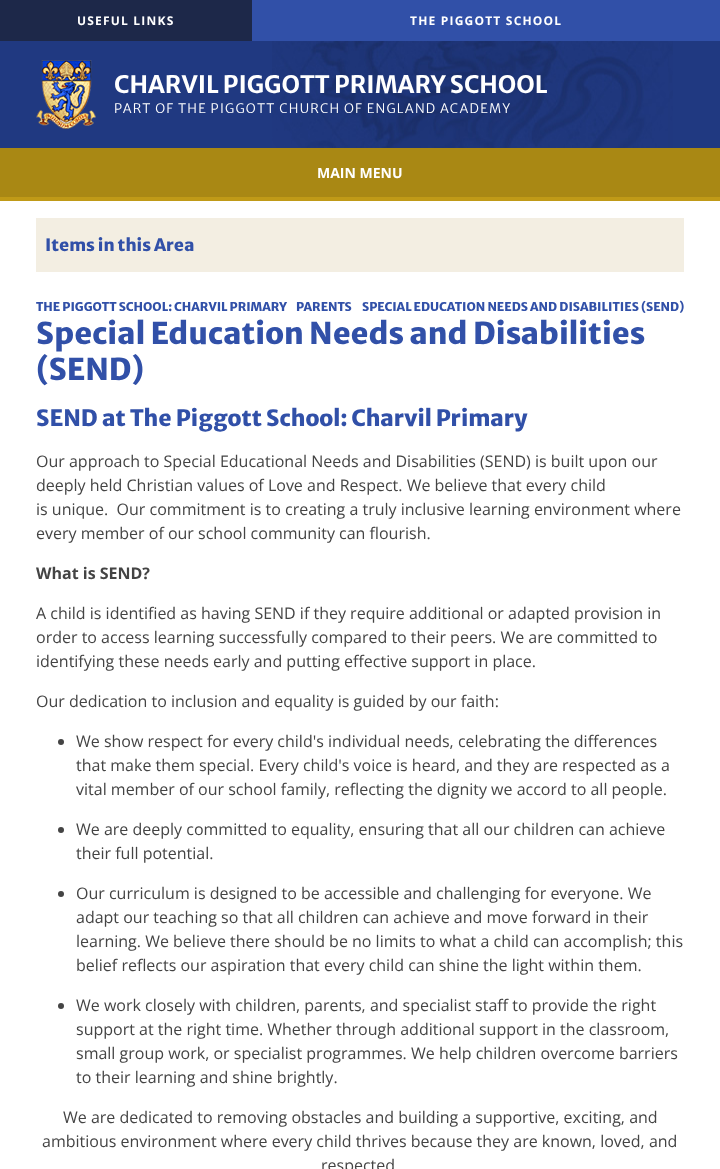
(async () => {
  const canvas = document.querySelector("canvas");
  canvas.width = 720;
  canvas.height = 1169;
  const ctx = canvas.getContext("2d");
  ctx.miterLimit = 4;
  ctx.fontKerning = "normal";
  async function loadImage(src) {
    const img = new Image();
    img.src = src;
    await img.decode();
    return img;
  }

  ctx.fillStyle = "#203981";
  ctx.fillRect(0, 0, 720, 1169);
  ctx.fillStyle = "#1d2849";
  ctx.fillRect(0, 0, 252, 41);
  ctx.fillStyle = "#3150a8";
  ctx.fillRect(252, 0, 468, 41);
  ctx.drawImage(await loadImage("img/1.png"), 272, 41, 401, 107);
  ctx.drawImage(await loadImage("img/2.png"), 36, 60, 60, 69);
  for (const [x, y, w, h, color] of [
    [0, 197, 720, 4, "#c09a17"],
    [0, 148, 720, 49, "#a98814"],
    [0, 201, 720, 968, "#ffffff"],
    [36, 218, 648, 54, "#f3eee2"],
  ]) {
    ctx.fillStyle = color;
    ctx.fillRect(x, y, w, h);
  }
  ctx.fillStyle = "#444444";
  ctx.beginPath();
  ctx.arc(61, 742, 3, 0, Math.PI * 2);
  ctx.fill();
  ctx.beginPath();
  ctx.arc(61, 830, 3, 0, Math.PI * 2);
  ctx.fill();
  ctx.beginPath();
  ctx.arc(61, 894, 3, 0, Math.PI * 2);
  ctx.fill();
  ctx.beginPath();
  ctx.arc(61, 1006, 3, 0, Math.PI * 2);
  ctx.fill();
  ctx.letterSpacing = "1.2px";
  ctx.font = "bold 12px Open Sans";
  ctx.fillStyle = "#ffffff";
  ctx.fillText("USEFUL LINKS", 77, 25);
  ctx.fillText("THE PIGGOTT SCHOOL", 410, 25);
  ctx.letterSpacing = "0px";
  ctx.font = "bold 24px Merriweather Sans";
  ctx.fillText("CHARVIL PIGGOTT PRIMARY SCHOOL", 114, 93);
  ctx.letterSpacing = "1.25px";
  ctx.font = "300 13px Merriweather Sans";
  ctx.fillText("PART OF THE PIGGOTT CHURCH OF ENGLAND ACADEMY", 114, 113);
  ctx.letterSpacing = "0px";
  ctx.font = "bold 14px Open Sans";
  ctx.fillText("MAIN MENU", 317, 178);
  ctx.font = "800 17px Merriweather Sans";
  ctx.fillStyle = "#3150a8";
  ctx.fillText("Items in this Area", 45, 251);
  ctx.font = "800 12px Merriweather Sans";
  for (const [text, x, y] of [
    ["THE PIGGOTT SCHOOL: CHARVIL PRIMARY", 36, 311],
    ["PARENTS", 296, 311],
    ["SPECIAL EDUCATION NEEDS AND DISABILITIES (SEND)", 362, 311],
  ]) {
    ctx.fillText(text, x, y);
  }
  ctx.font = "800 30px Merriweather Sans";
  ctx.fillText("Special Education Needs and Disabilities", 36, 344);
  ctx.fillText("(SEND)", 36, 380);
  ctx.font = "800 22.4px Merriweather Sans";
  ctx.fillText("SEND at The Piggott School: Charvil Primary", 36, 426);
  ctx.font = "16px Open Sans";
  ctx.fillStyle = "#444444";
  for (const [text, x, y] of [
    ["Our approach to Special Educational Needs and Disabilities (SEND) is built upon our", 36, 467],
    ["deeply held Christian values of Love and Respect. We believe that every child", 36, 491],
    ["is unique.  Our commitment is to creating a truly inclusive learning environment where", 36, 515],
    ["every member of our school community can flourish.", 36, 539],
  ]) {
    ctx.fillText(text, x, y);
  }
  ctx.font = "bold 16px Open Sans";
  ctx.fillText("What is SEND?", 36, 579);
  ctx.font = "16px Open Sans";
  for (const [text, x, y] of [
    ["A child is identified as having SEND if they require additional or adapted provision in", 36, 619],
    ["order to access learning successfully compared to their peers. We are committed to", 36, 643],
    ["identifying these needs early and putting effective support in place.", 36, 667],
    ["Our dedication to inclusion and equality is guided by our faith:", 36, 707],
    ["We show respect for every child's individual needs, celebrating the differences", 76, 747],
    ["that make them special. Every child's voice is heard, and they are respected as a", 76, 771],
    ["vital member of our school family, reflecting the dignity we accord to all people.", 76, 795],
    ["We are deeply committed to equality, ensuring that all our children can achieve", 76, 835],
    ["their full potential.", 76, 859],
    ["Our curriculum is designed to be accessible and challenging for everyone. We", 76, 899],
    ["adapt our teaching so that all children can achieve and move forward in their", 76, 923],
    ["learning. We believe there should be no limits to what a child can accomplish; this", 76, 947],
    ["belief reflects our aspiration that every child can shine the light within them.", 76, 971],
    ["We work closely with children, parents, and specialist staff to provide the right", 76, 1011],
    ["support at the right time. Whether through additional support in the classroom,", 76, 1035],
    ["small group work, or specialist programmes. We help children overcome barriers", 76, 1059],
    ["to their learning and shine brightly.", 76, 1083],
    ["We are dedicated to removing obstacles and building a supportive, exciting, and", 63, 1123],
    ["ambitious environment where every child thrives because they are known, loved, and", 42, 1147],
    ["respected", 321, 1171],
  ]) {
    ctx.fillText(text, x, y);
  }
})();
